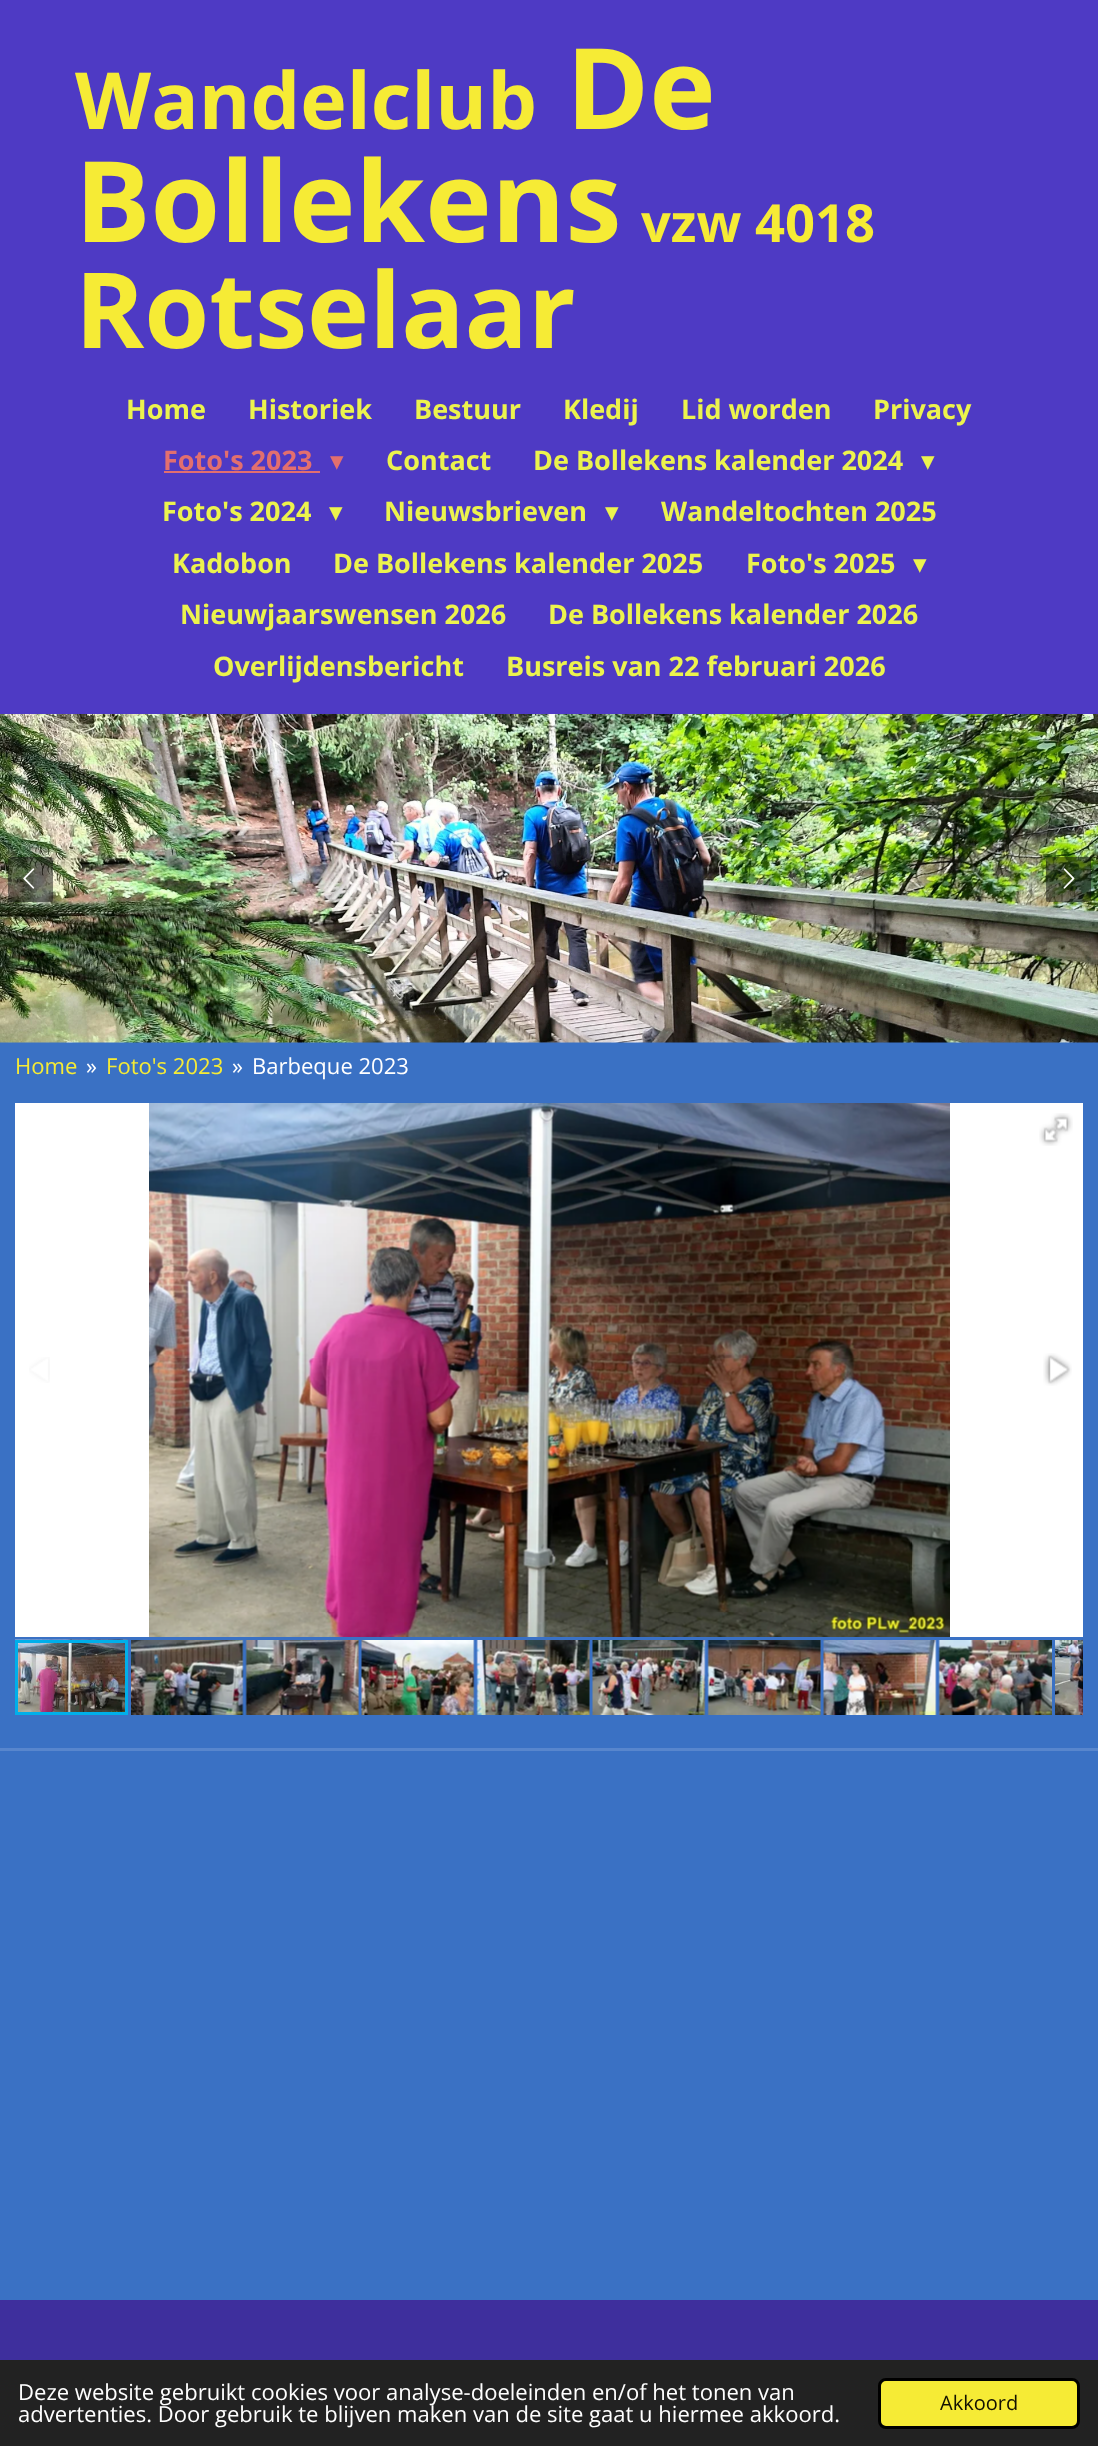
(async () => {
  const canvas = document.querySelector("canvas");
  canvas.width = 1098;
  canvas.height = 2446;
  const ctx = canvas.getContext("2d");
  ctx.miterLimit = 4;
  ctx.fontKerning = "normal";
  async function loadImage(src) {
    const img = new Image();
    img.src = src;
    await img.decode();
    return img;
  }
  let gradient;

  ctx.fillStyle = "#3a71c4";
  ctx.fillRect(0, 0, 1098, 2446);
  ctx.fillStyle = "#4e3ac4";
  ctx.fillRect(0, 0, 1098, 714);
  ctx.fillStyle = "#e26f6f";
  ctx.fillRect(164, 471, 156, 2);
  ctx.drawImage(await loadImage("img/1.png"), 0, 714, 1098, 329);
  ctx.fillStyle = "rgba(15, 15, 15, 0.5)";
  ctx.beginPath();
  ctx.roundRect(8, 857, 45, 45, 2);
  ctx.fill();
  ctx.drawImage(await loadImage("img/2.png"), 23, 868, 12, 21);
  ctx.beginPath();
  ctx.roundRect(1046, 857, 45, 45, 2);
  ctx.fill();
  ctx.drawImage(await loadImage("img/3.png"), 1063, 868, 12, 21);
  ctx.fillStyle = "#5886cd";
  ctx.fillRect(0, 1748, 1098, 3);
  ctx.fillStyle = "#ffffff";
  ctx.fillRect(15, 1103, 1068, 534);
  ctx.drawImage(await loadImage("img/4.png"), 149, 1103, 801, 534);
  ctx.drawImage(await loadImage("img/5.png"), 1039, 1113, 34, 33);
  ctx.drawImage(await loadImage("img/6.png"), 29, 1357, 21, 26);
  ctx.drawImage(await loadImage("img/7.png"), 1043, 1353, 29, 33);
  ctx.drawImage(await loadImage("img/17.png"), 1055, 1640, 28, 75);
  gradient = ctx.createRadialGradient(1083, 306.77, 0, 1083, 306.77, 7.5);
  gradient.addColorStop(0, "rgba(0, 0, 0, 0.4)");
  gradient.addColorStop(1, "rgba(0, 0, 0, 0)");
  ctx.fillStyle = gradient;
  ctx.beginPath();
  ctx.rect(1076, 1637, 7, 81);
  ctx.save();
  ctx.clip();
  ctx.scale(1, 41 / 7.5);
  ctx.fillRect(0, 0, 1098, 448);
  ctx.restore();
  gradient = ctx.createLinearGradient(1082, 1637, 1082, 1718);
  gradient.addColorStop(0, "rgba(0, 0, 0, 0)");
  gradient.addColorStop(0.25, "rgba(0, 0, 0, 0.2)");
  gradient.addColorStop(0.75, "rgba(0, 0, 0, 0.3)");
  gradient.addColorStop(1, "rgba(0, 0, 0, 0)");
  ctx.fillStyle = gradient;
  ctx.fillRect(1082, 1637, 1, 81);
  ctx.drawImage(await loadImage("img/8.png"), 15, 1639, 113, 73);
  ctx.strokeStyle = "#00afea";
  ctx.lineWidth = 3;
  ctx.strokeRect(16.5, 1641.5, 110, 72);
  ctx.fillStyle = "#4874b6";
  ctx.fillRect(242, 1640, 1, 75);
  ctx.drawImage(await loadImage("img/9.png"), 131, 1640, 113, 75);
  ctx.fillRect(246, 1640, 113, 75);
  ctx.drawImage(await loadImage("img/10.png"), 245, 1640, 114, 75);
  ctx.fillRect(473, 1640, 1, 75);
  ctx.drawImage(await loadImage("img/11.png"), 361, 1640, 114, 75);
  ctx.fillRect(477, 1640, 113, 75);
  ctx.drawImage(await loadImage("img/12.png"), 476, 1640, 114, 75);
  ctx.fillRect(704, 1640, 1, 75);
  ctx.drawImage(await loadImage("img/13.png"), 592, 1640, 114, 75);
  ctx.fillRect(708, 1640, 113, 75);
  ctx.drawImage(await loadImage("img/14.png"), 707, 1640, 114, 75);
  ctx.fillRect(935, 1640, 1, 75);
  ctx.drawImage(await loadImage("img/15.png"), 823, 1640, 114, 75);
  ctx.fillRect(939, 1640, 1, 75);
  ctx.drawImage(await loadImage("img/16.png"), 938, 1640, 114, 75);
  ctx.fillStyle = "#3e2f9d";
  ctx.fillRect(0, 2300, 1098, 60);
  ctx.fillStyle = "#222222";
  ctx.fillRect(0, 2360, 1098, 86);
  ctx.fillStyle = "#f6eb35";
  ctx.beginPath();
  ctx.roundRect(879.5, 2379.5, 199, 48, 6.5);
  ctx.fill();
  ctx.strokeStyle = "#000000";
  ctx.stroke();
  ctx.font = "bold 78.75px Open Sans";
  ctx.fillText("Wandelclub", 75, 129);
  ctx.font = "bold 112.5px Open Sans";
  ctx.fillText("De", 566, 129);
  ctx.fillText("Bollekens", 75, 242);
  ctx.font = "bold 52.5px Open Sans";
  ctx.fillText("vzw 4018", 641, 242);
  ctx.font = "bold 105px Open Sans";
  ctx.fillText("Rotselaar", 75, 348);
  ctx.font = "bold 27px Open Sans";
  ctx.fillStyle = "#ecf34d";
  for (const [text, x, y] of [
    ["Home", 126, 419],
    ["Historiek", 248, 419],
    ["Bestuur", 414, 419],
    ["Kledij", 563, 419],
    ["Lid worden", 681, 419],
    ["Privacy", 873, 419],
  ]) {
    ctx.fillText(text, x, y);
  }
  ctx.fillStyle = "#e26f6f";
  ctx.fillText("Foto's 2023", 163, 470);
  ctx.font = "27px DejaVu Sans";
  ctx.fillText("▾", 330, 470);
  ctx.font = "bold 27px Open Sans";
  ctx.fillStyle = "#ecf34d";
  ctx.fillText("Contact", 386, 470);
  ctx.fillText("De Bollekens kalender 2024", 533, 470);
  ctx.font = "27px DejaVu Sans";
  ctx.fillText("▾", 921, 470);
  ctx.font = "bold 27px Open Sans";
  ctx.fillText("Foto's 2024", 162, 521);
  ctx.font = "27px DejaVu Sans";
  ctx.fillText("▾", 329, 521);
  ctx.font = "bold 27px Open Sans";
  ctx.fillText("Nieuwsbrieven", 384, 521);
  ctx.font = "27px DejaVu Sans";
  ctx.fillText("▾", 605, 521);
  ctx.font = "bold 27px Open Sans";
  for (const [text, x, y] of [
    ["Wandeltochten 2025", 661, 521],
    ["Kadobon", 172, 573],
    ["De Bollekens kalender 2025", 333, 573],
    ["Foto's 2025", 746, 573],
  ]) {
    ctx.fillText(text, x, y);
  }
  ctx.font = "27px DejaVu Sans";
  ctx.fillText("▾", 913, 573);
  ctx.font = "bold 27px Open Sans";
  for (const [text, x, y] of [
    ["Nieuwjaarswensen 2026", 180, 624],
    ["De Bollekens kalender 2026", 548, 624],
    ["Overlijdensbericht", 213, 676],
    ["Busreis van 22 februari 2026", 506, 676],
  ]) {
    ctx.fillText(text, x, y);
  }
  ctx.font = "22.05px Open Sans";
  ctx.fillStyle = "#f6eb35";
  ctx.fillText("Home", 15, 1074);
  ctx.fillStyle = "#ffffff";
  ctx.fillText("»", 86, 1074);
  ctx.fillStyle = "#f6eb35";
  ctx.fillText("Foto's 2023", 106, 1074);
  ctx.fillStyle = "#ffffff";
  for (const [text, x, y] of [
    ["»", 232, 1074],
    ["Barbeque 2023", 252, 1074],
    ["Deze website gebruikt cookies voor analyse-doeleinden en/of het tonen van", 18, 2400],
    ["advertenties. Door gebruik te blijven maken van de site gaat u hiermee akkoord.", 18, 2422],
  ]) {
    ctx.fillText(text, x, y);
  }
  ctx.font = "20px Open Sans";
  ctx.fillStyle = "#121101";
  ctx.fillText("Akkoord", 940, 2410);
})();
